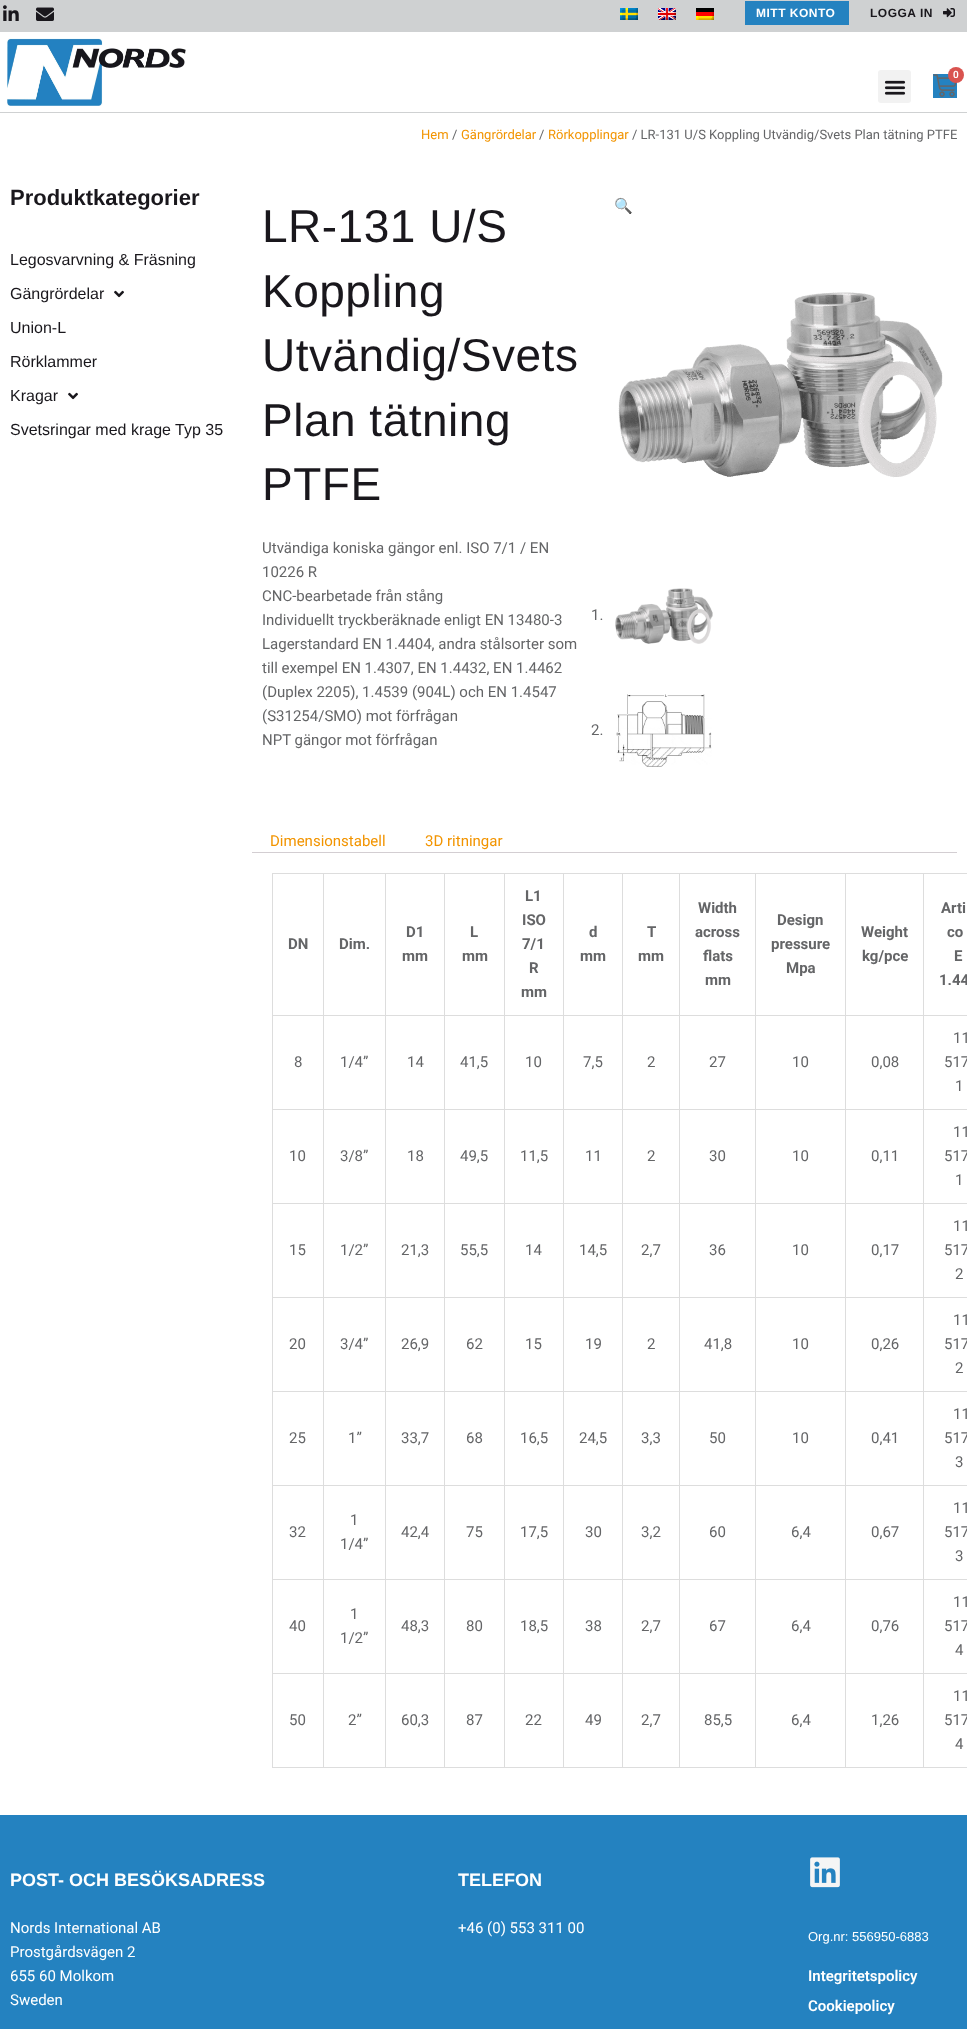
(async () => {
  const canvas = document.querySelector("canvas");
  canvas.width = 967;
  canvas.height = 2029;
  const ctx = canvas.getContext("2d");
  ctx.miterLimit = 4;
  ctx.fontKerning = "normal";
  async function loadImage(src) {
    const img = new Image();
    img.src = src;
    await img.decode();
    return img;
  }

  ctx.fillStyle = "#ffffff";
  ctx.fillRect(0, 0, 967, 2029);
  ctx.fillStyle = "#cfd1d2";
  ctx.fillRect(0, 0, 967, 32);
  ctx.drawImage(await loadImage("img/1.png"), 3, 5, 16, 16);
  ctx.drawImage(await loadImage("img/2.png"), 36, 7, 18, 14);
  ctx.drawImage(await loadImage("img/3.png"), 620, 8, 18, 12);
  ctx.drawImage(await loadImage("img/4.png"), 658, 8, 18, 12);
  ctx.drawImage(await loadImage("img/5.png"), 696, 8, 18, 12);
  ctx.fillStyle = "#2482c0";
  ctx.fillRect(745, 1, 104, 24);
  ctx.drawImage(await loadImage("img/6.png"), 943, 8, 12, 10);
  ctx.fillStyle = "#cfd1d2";
  ctx.fillRect(0, 112, 967, 1);
  ctx.drawImage(await loadImage("img/7.png"), 7, 38, 179, 68);
  ctx.fillStyle = "#f2f2f2";
  ctx.beginPath();
  ctx.roundRect(878, 70, 33, 33, 3);
  ctx.fill();
  ctx.drawImage(await loadImage("img/8.png"), 884, 80, 22, 15);
  ctx.fillStyle = "#2482c0";
  ctx.fillRect(933, 74, 24, 24);
  ctx.drawImage(await loadImage("img/9.png"), 933, 74, 24, 23);
  ctx.fillStyle = "#d9534f";
  ctx.beginPath();
  ctx.arc(956, 75, 8, 0, Math.PI * 2);
  ctx.fill();
  ctx.drawImage(await loadImage("img/10.png"), 114, 290, 10, 8);
  ctx.drawImage(await loadImage("img/10.png"), 68, 392, 10, 8);
  ctx.drawImage(await loadImage("img/11.png"), 618, 292, 325, 186);
  ctx.drawImage(await loadImage("img/12.png"), 615, 588, 98, 56);
  ctx.drawImage(await loadImage("img/13.png"), 616, 694, 96, 73);
  for (const [x, y, w, h, color] of [
    [252, 852, 705, 1, "#d3ced2"],
    [272, 873, 695, 1, "#dddddd"],
    [272, 873, 1, 895, "#dddddd"],
    [323, 874, 1, 894, "#dddddd"],
    [273, 1015, 51, 1, "#dddddd"],
    [385, 874, 1, 894, "#dddddd"],
    [324, 1015, 62, 1, "#dddddd"],
    [444, 874, 1, 894, "#dddddd"],
    [386, 1015, 59, 1, "#dddddd"],
    [504, 874, 1, 894, "#dddddd"],
    [445, 1015, 60, 1, "#dddddd"],
    [563, 874, 1, 894, "#dddddd"],
    [505, 1015, 59, 1, "#dddddd"],
    [622, 874, 1, 894, "#dddddd"],
    [564, 1015, 59, 1, "#dddddd"],
    [679, 874, 1, 894, "#dddddd"],
    [623, 1015, 57, 1, "#dddddd"],
    [755, 874, 1, 894, "#dddddd"],
    [680, 1015, 76, 1, "#dddddd"],
    [845, 874, 1, 894, "#dddddd"],
    [756, 1015, 90, 1, "#dddddd"],
    [923, 874, 1, 894, "#dddddd"],
    [846, 1015, 121, 1, "#dddddd"],
    [273, 1109, 694, 1, "#dddddd"],
    [273, 1203, 694, 1, "#dddddd"],
    [273, 1297, 694, 1, "#dddddd"],
    [273, 1391, 694, 1, "#dddddd"],
    [273, 1485, 694, 1, "#dddddd"],
    [273, 1579, 694, 1, "#dddddd"],
    [273, 1673, 694, 1, "#dddddd"],
    [273, 1767, 694, 1, "#dddddd"],
    [0, 1815, 967, 214, "#2482c0"],
  ]) {
    ctx.fillStyle = color;
    ctx.fillRect(x, y, w, h);
  }
  ctx.drawImage(await loadImage("img/14.png"), 810, 1857, 30, 31);
  ctx.letterSpacing = "0.5px";
  ctx.font = "bold 12px Liberation Sans";
  ctx.fillStyle = "#ffffff";
  ctx.fillText("MITT KONTO", 756, 17);
  ctx.fillStyle = "#19171c";
  ctx.fillText("LOGGA IN", 870, 17);
  ctx.letterSpacing = "0px";
  ctx.font = "600 10px Roboto";
  ctx.fillStyle = "#ffffff";
  ctx.fillText("0", 953, 78);
  ctx.font = "13px Roboto";
  ctx.fillStyle = "#f29400";
  ctx.fillText("Hem", 421, 139);
  ctx.fillStyle = "#646567";
  ctx.fillText("/", 452, 139);
  ctx.fillStyle = "#f29400";
  ctx.fillText("Gängrördelar", 461, 139);
  ctx.fillStyle = "#646567";
  ctx.fillText("/", 539, 139);
  ctx.fillStyle = "#f29400";
  ctx.fillText("Rörkopplingar", 548, 139);
  ctx.fillStyle = "#646567";
  ctx.fillText("/ LR-131 U/S Koppling Utvändig/Svets Plan tätning PTFE", 632, 139);
  ctx.font = "bold 22px Liberation Sans";
  ctx.fillStyle = "#19171c";
  ctx.fillText("Produktkategorier", 10, 205);
  ctx.font = "16px Liberation Sans";
  for (const [text, x, y] of [
    ["Legosvarvning & Fräsning", 10, 265],
    ["Gängrördelar", 10, 299],
    ["Union-L", 10, 333],
    ["Rörklammer", 10, 367],
    ["Kragar", 10, 401],
    ["Svetsringar med krage Typ 35", 10, 435],
  ]) {
    ctx.fillText(text, x, y);
  }
  ctx.letterSpacing = "0.5px";
  ctx.font = "46px Liberation Sans";
  for (const [text, x, y] of [
    ["LR-131 U/S", 262, 242],
    ["Koppling", 262, 307],
    ["Utvändig/Svets", 262, 371],
    ["Plan tätning", 262, 436],
    ["PTFE", 262, 500],
  ]) {
    ctx.fillText(text, x, y);
  }
  ctx.letterSpacing = "0px";
  ctx.font = "15px Roboto";
  ctx.fillStyle = "#646567";
  for (const [text, x, y] of [
    ["Utvändiga koniska gängor enl. ISO 7/1 / EN", 262, 553],
    ["10226 R", 262, 577],
    ["CNC-bearbetade från stång", 262, 601],
    ["Individuellt tryckberäknade enligt EN 13480-3", 262, 625],
    ["Lagerstandard EN 1.4404, andra stålsorter som", 262, 649],
    ["till exempel EN 1.4307, EN 1.4432, EN 1.4462", 262, 673],
    ["(Duplex 2205), 1.4539 (904L) och EN 1.4547", 262, 697],
    ["(S31254/SMO) mot förfrågan", 262, 721],
    ["NPT gängor mot förfrågan", 262, 745],
  ]) {
    ctx.fillText(text, x, y);
  }
  ctx.font = "15px Noto Color Emoji";
  ctx.fillStyle = "#f29400";
  ctx.fillText("🔍", 614, 211);
  ctx.font = "15px Roboto";
  ctx.fillStyle = "#646567";
  ctx.fillText("1.", 591, 620);
  ctx.fillText("2.", 591, 735);
  ctx.fillStyle = "#f29400";
  ctx.fillText("Dimensionstabell", 270, 846);
  ctx.fillText("3D ritningar", 425, 846);
  ctx.font = "bold 15px Roboto";
  ctx.fillStyle = "#646567";
  for (const [text, x, y] of [
    ["DN", 288, 949],
    ["Dim.", 339, 949],
    ["D1", 406, 937],
    ["mm", 402, 961],
    ["L", 470, 937],
    ["mm", 462, 961],
    ["L1", 525, 901],
    ["ISO", 522, 925],
    ["7/1", 522, 949],
    ["R", 529, 973],
    ["mm", 521, 997],
    ["d", 589, 937],
    ["mm", 580, 961],
    ["T", 647, 937],
    ["mm", 638, 961],
    ["Width", 698, 913],
    ["across", 695, 937],
    ["flats", 703, 961],
    ["mm", 705, 985],
    ["Design", 777, 925],
    ["pressure", 771, 949],
    ["Mpa", 786, 973],
    ["Weight", 861, 937],
    ["kg/pce", 862, 961],
    ["Arti", 941, 913],
    ["co", 947, 937],
    ["E", 954, 961],
    ["1.44", 939, 985],
  ]) {
    ctx.fillText(text, x, y);
  }
  ctx.font = "15px Roboto";
  for (const [text, x, y] of [
    ["8", 294, 1067],
    ["1/4”", 340, 1067],
    ["14", 407, 1067],
    ["41,5", 460, 1067],
    ["10", 525, 1067],
    ["7,5", 583, 1067],
    ["2", 647, 1067],
    ["27", 709, 1067],
    ["10", 792, 1067],
    ["0,08", 871, 1067],
    ["11", 953, 1043],
    ["517", 944, 1067],
    ["1", 955, 1091],
    ["10", 289, 1161],
    ["3/8”", 340, 1161],
    ["18", 407, 1161],
    ["49,5", 460, 1161],
    ["11,5", 520, 1161],
    ["11", 585, 1161],
    ["2", 647, 1161],
    ["30", 709, 1161],
    ["10", 792, 1161],
    ["0,11", 871, 1161],
    ["11", 953, 1137],
    ["517", 944, 1161],
    ["1", 955, 1185],
    ["15", 289, 1255],
    ["1/2”", 340, 1255],
    ["21,3", 401, 1255],
    ["55,5", 460, 1255],
    ["14", 525, 1255],
    ["14,5", 579, 1255],
    ["2,7", 641, 1255],
    ["36", 709, 1255],
    ["10", 792, 1255],
    ["0,17", 871, 1255],
    ["11", 953, 1231],
    ["517", 944, 1255],
    ["2", 955, 1279],
    ["20", 289, 1349],
    ["3/4”", 340, 1349],
    ["26,9", 401, 1349],
    ["62", 466, 1349],
    ["15", 525, 1349],
    ["19", 585, 1349],
    ["2", 647, 1349],
    ["41,8", 704, 1349],
    ["10", 792, 1349],
    ["0,26", 871, 1349],
    ["11", 953, 1325],
    ["517", 944, 1349],
    ["2", 955, 1373],
    ["25", 289, 1443],
    ["1”", 348, 1443],
    ["33,7", 401, 1443],
    ["68", 466, 1443],
    ["16,5", 520, 1443],
    ["24,5", 579, 1443],
    ["3,3", 641, 1443],
    ["50", 709, 1443],
    ["10", 792, 1443],
    ["0,41", 871, 1443],
    ["11", 953, 1419],
    ["517", 944, 1443],
    ["3", 955, 1467],
    ["32", 289, 1537],
    ["1", 350, 1525],
    ["1/4”", 340, 1549],
    ["42,4", 401, 1537],
    ["75", 466, 1537],
    ["17,5", 520, 1537],
    ["30", 585, 1537],
    ["3,2", 641, 1537],
    ["60", 709, 1537],
    ["6,4", 791, 1537],
    ["0,67", 871, 1537],
    ["11", 953, 1513],
    ["517", 944, 1537],
    ["3", 955, 1561],
    ["40", 289, 1631],
    ["1", 350, 1619],
    ["1/2”", 340, 1643],
    ["48,3", 401, 1631],
    ["80", 466, 1631],
    ["18,5", 520, 1631],
    ["38", 585, 1631],
    ["2,7", 641, 1631],
    ["67", 709, 1631],
    ["6,4", 791, 1631],
    ["0,76", 871, 1631],
    ["11", 953, 1607],
    ["517", 944, 1631],
    ["4", 955, 1655],
    ["50", 289, 1725],
    ["2”", 348, 1725],
    ["60,3", 401, 1725],
    ["87", 466, 1725],
    ["22", 525, 1725],
    ["49", 585, 1725],
    ["2,7", 641, 1725],
    ["85,5", 704, 1725],
    ["6,4", 791, 1725],
    ["1,26", 871, 1725],
    ["11", 953, 1701],
    ["517", 944, 1725],
    ["4", 955, 1749],
  ]) {
    ctx.fillText(text, x, y);
  }
  ctx.font = "bold 18px Liberation Sans";
  ctx.fillStyle = "#ffffff";
  ctx.fillText("POST- OCH BESÖKSADRESS", 10, 1886);
  ctx.font = "15px Roboto";
  for (const [text, x, y] of [
    ["Nords International AB", 10, 1933],
    ["Prostgårdsvägen 2", 10, 1957],
    ["655 60 Molkom", 10, 1981],
    ["Sweden", 10, 2005],
  ]) {
    ctx.fillText(text, x, y);
  }
  ctx.font = "bold 18px Liberation Sans";
  ctx.fillText("TELEFON", 458, 1886);
  ctx.font = "15px Roboto";
  ctx.fillText("+46 (0) 553 311 00", 458, 1933);
  ctx.font = "13px Liberation Sans";
  ctx.fillText("Org.nr: 556950-6883", 808, 1941);
  ctx.font = "600 15px Roboto";
  ctx.fillText("Integritetspolicy", 808, 1981);
  ctx.fillText("Cookiepolicy", 808, 2011);
})();
